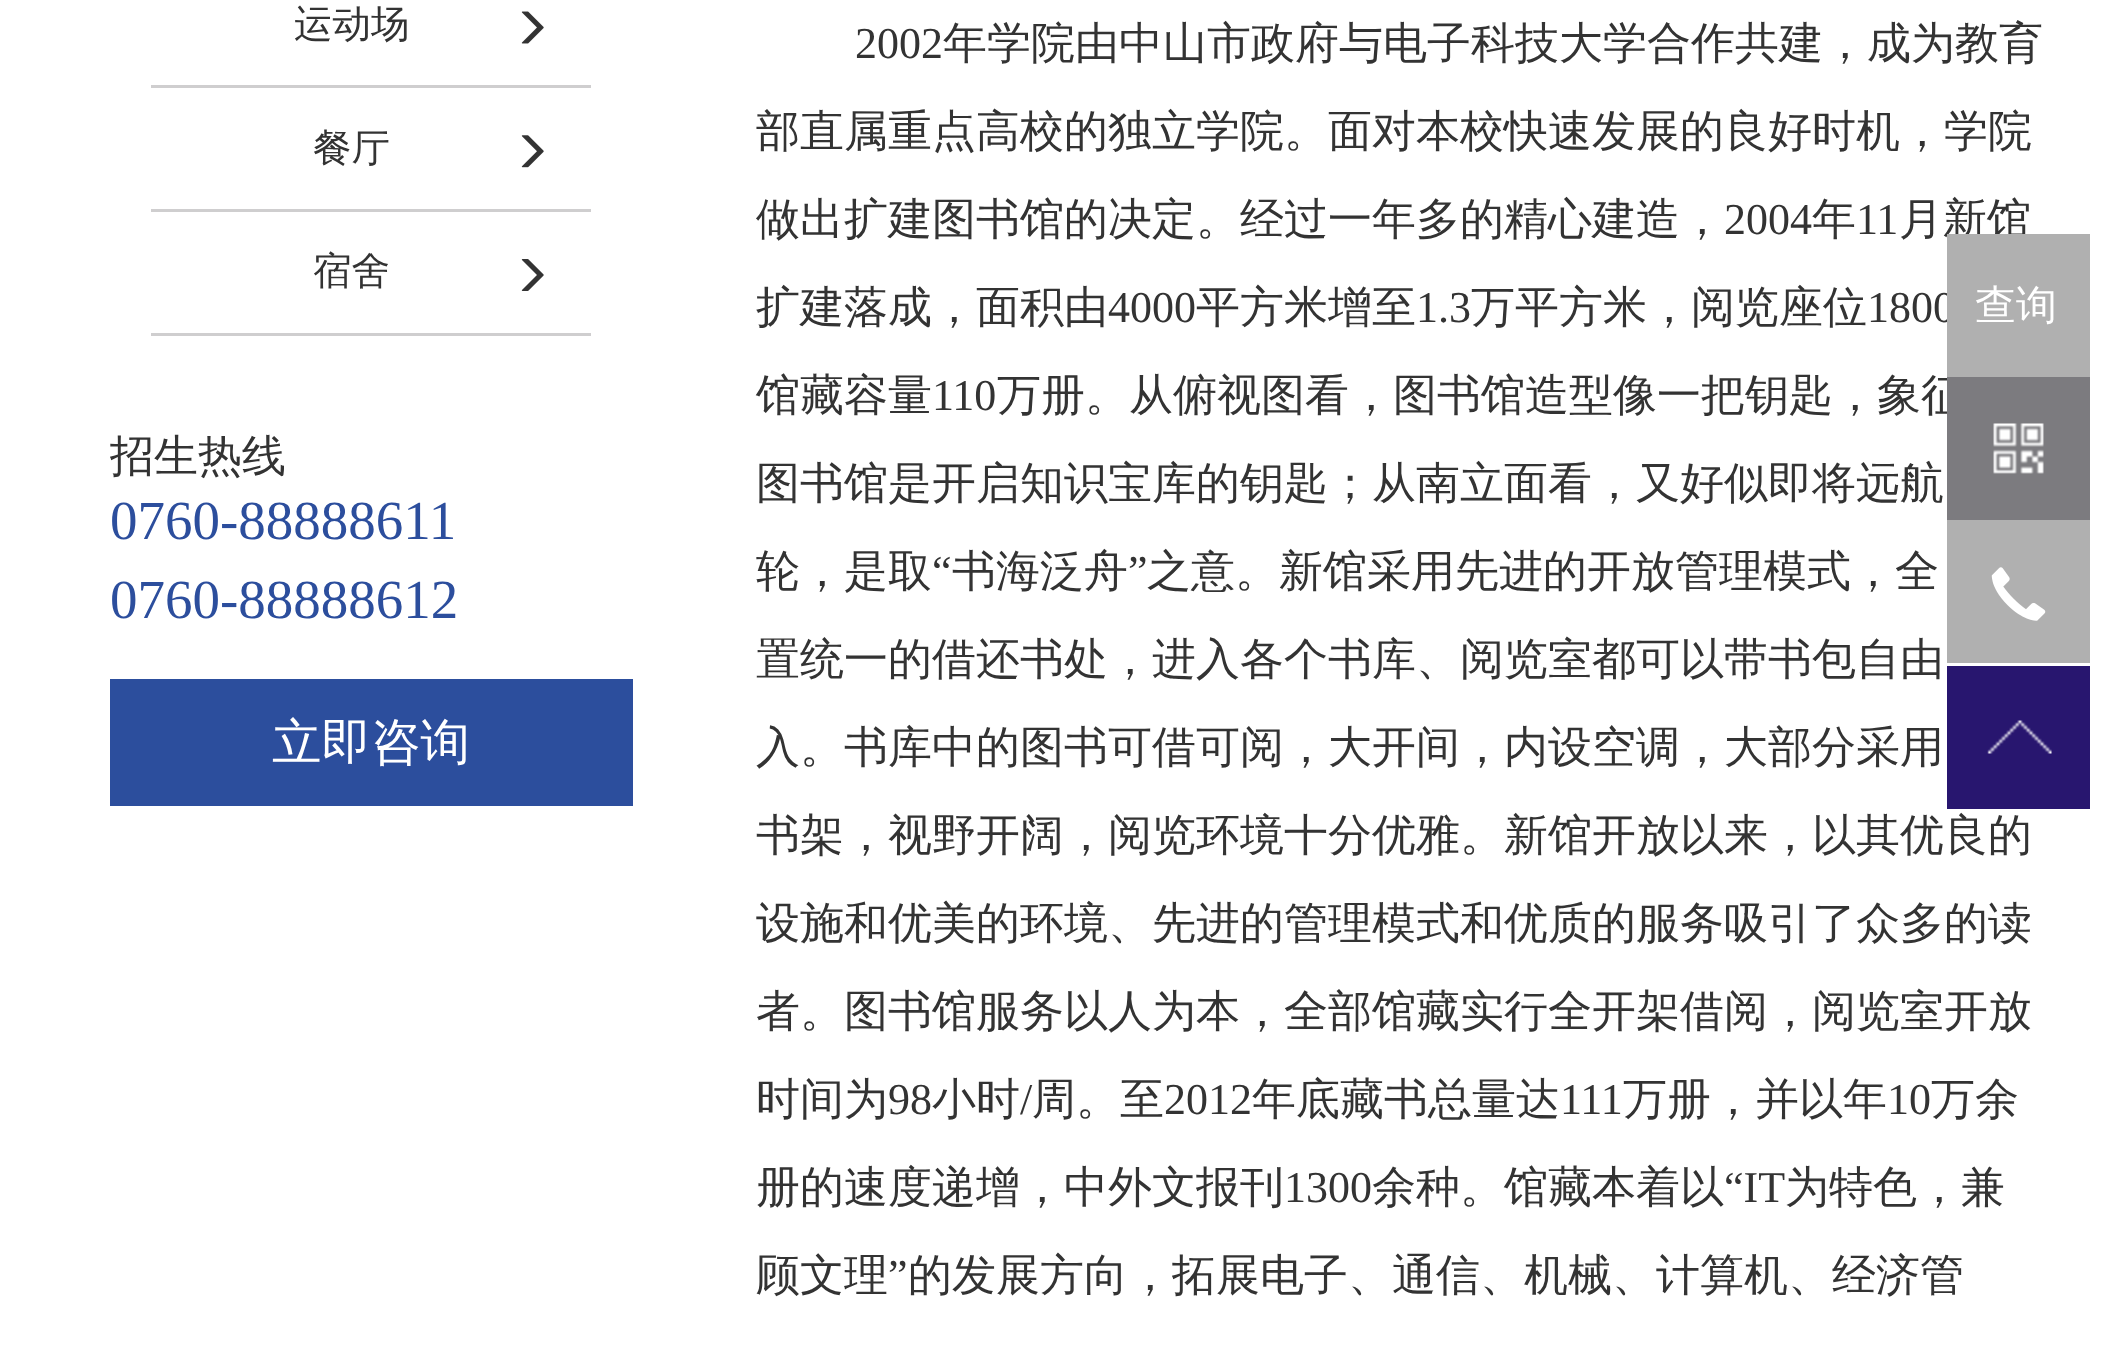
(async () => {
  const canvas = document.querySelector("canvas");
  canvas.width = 2115;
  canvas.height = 1345;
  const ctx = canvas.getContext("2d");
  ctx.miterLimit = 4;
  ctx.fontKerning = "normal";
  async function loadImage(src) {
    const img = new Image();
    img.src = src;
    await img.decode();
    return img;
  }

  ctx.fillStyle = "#ffffff";
  ctx.fillRect(0, 0, 2115, 1345);
  ctx.fillStyle = "#cfcecf";
  ctx.fillRect(151, 85, 440, 3);
  ctx.drawImage(await loadImage("img/1.png"), 521, 11, 23, 33);
  ctx.fillRect(151, 209, 440, 3);
  ctx.drawImage(await loadImage("img/2.png"), 521, 135, 23, 33);
  ctx.fillRect(151, 333, 440, 3);
  ctx.drawImage(await loadImage("img/3.png"), 521, 259, 23, 32);
  ctx.fillStyle = "#2c4e9d";
  ctx.fillRect(110, 679, 523, 127);
  ctx.fillStyle = "#b0b0b0";
  ctx.fillRect(1947, 520, 143, 143);
  ctx.drawImage(await loadImage("img/5.png"), 1991, 567, 55, 54);
  ctx.fillStyle = "#28166f";
  ctx.fillRect(1947, 666, 143, 143);
  ctx.drawImage(await loadImage("img/6.png"), 1987, 720, 65, 34);
  ctx.font = "500 38.5px WenQuanYi Zen Hei";
  ctx.fillStyle = "#333333";
  for (const [text, x, y] of [
    ["运动场", 294, 37],
    ["餐厅", 313, 161],
    ["宿舍", 313, 284],
  ]) {
    ctx.fillText(text, x, y);
  }
  ctx.font = "500 44px WenQuanYi Zen Hei";
  ctx.fillText("招生热线", 110, 471);
  ctx.font = "55px Liberation Serif";
  ctx.fillStyle = "#2c4e9d";
  ctx.fillText("0760-88888611", 110, 539);
  ctx.fillText("0760-88888612", 110, 618);
  ctx.font = "500 49.5px WenQuanYi Zen Hei";
  ctx.fillStyle = "#ffffff";
  ctx.fillText("立即咨询", 272, 759);
  ctx.font = "44px Liberation Serif";
  ctx.fillStyle = "#333333";
  ctx.fillText("2002", 855, 58);
  ctx.font = "500 44px WenQuanYi Zen Hei";
  for (const [text, x, y] of [
    ["年学院由中山市政府与电子科技大学合作共建，成为教育", 943, 58],
    ["部直属重点高校的独立学院。面对本校快速发展的良好时机，学院", 756, 146],
    ["做出扩建图书馆的决定。经过一年多的精心建造，", 756, 234],
  ]) {
    ctx.fillText(text, x, y);
  }
  ctx.font = "44px Liberation Serif";
  ctx.fillText("2004", 1724, 234);
  ctx.font = "500 44px WenQuanYi Zen Hei";
  ctx.fillText("年", 1812, 234);
  ctx.font = "44px Liberation Serif";
  ctx.fillText("11", 1856, 234);
  ctx.font = "500 44px WenQuanYi Zen Hei";
  ctx.fillText("月新馆", 1899, 234);
  ctx.fillText("扩建落成，面积由", 756, 322);
  ctx.font = "44px Liberation Serif";
  ctx.fillText("4000", 1108, 322);
  ctx.font = "500 44px WenQuanYi Zen Hei";
  ctx.fillText("平方米增至", 1196, 322);
  ctx.font = "44px Liberation Serif";
  ctx.fillText("1.3", 1416, 322);
  ctx.font = "500 44px WenQuanYi Zen Hei";
  ctx.fillText("万平方米，阅览座位", 1471, 322);
  ctx.font = "44px Liberation Serif";
  ctx.fillText("1800", 1867, 322);
  ctx.font = "500 44px WenQuanYi Zen Hei";
  ctx.fillText("馆藏容量", 756, 410);
  ctx.font = "44px Liberation Serif";
  ctx.fillText("110", 932, 410);
  ctx.font = "500 44px WenQuanYi Zen Hei";
  for (const [text, x, y] of [
    ["万册。从俯视图看，图书馆造型像一把钥匙，象征", 997, 410],
    ["图书馆是开启知识宝库的钥匙；从南立面看，又好似即将远航", 756, 498],
    ["轮，是取", 756, 586],
  ]) {
    ctx.fillText(text, x, y);
  }
  ctx.font = "44px Liberation Serif";
  ctx.fillText("“", 932, 586);
  ctx.font = "500 44px WenQuanYi Zen Hei";
  ctx.fillText("书海泛舟", 952, 586);
  ctx.font = "44px Liberation Serif";
  ctx.fillText("”", 1128, 586);
  ctx.font = "500 44px WenQuanYi Zen Hei";
  for (const [text, x, y] of [
    ["之意。新馆采用先进的开放管理模式，全", 1147, 586],
    ["置统一的借还书处，进入各个书库、阅览室都可以带书包自由", 756, 674],
    ["入。书库中的图书可借可阅，大开间，内设空调，大部分采用", 756, 762],
    ["书架，视野开阔，阅览环境十分优雅。新馆开放以来，以其优良的", 756, 850],
    ["设施和优美的环境、先进的管理模式和优质的服务吸引了众多的读", 756, 938],
    ["者。图书馆服务以人为本，全部馆藏实行全开架借阅，阅览室开放", 756, 1026],
    ["时间为", 756, 1114],
  ]) {
    ctx.fillText(text, x, y);
  }
  ctx.font = "44px Liberation Serif";
  ctx.fillText("98", 888, 1114);
  ctx.font = "500 44px WenQuanYi Zen Hei";
  ctx.fillText("小时", 932, 1114);
  ctx.font = "44px Liberation Serif";
  ctx.fillText("/", 1020, 1114);
  ctx.font = "500 44px WenQuanYi Zen Hei";
  ctx.fillText("周。至", 1032, 1114);
  ctx.font = "44px Liberation Serif";
  ctx.fillText("2012", 1164, 1114);
  ctx.font = "500 44px WenQuanYi Zen Hei";
  ctx.fillText("年底藏书总量达", 1252, 1114);
  ctx.font = "44px Liberation Serif";
  ctx.fillText("111", 1560, 1114);
  ctx.font = "500 44px WenQuanYi Zen Hei";
  ctx.fillText("万册，并以年", 1623, 1114);
  ctx.font = "44px Liberation Serif";
  ctx.fillText("10", 1887, 1114);
  ctx.font = "500 44px WenQuanYi Zen Hei";
  ctx.fillText("万余", 1931, 1114);
  ctx.fillText("册的速度递增，中外文报刊", 756, 1202);
  ctx.font = "44px Liberation Serif";
  ctx.fillText("1300", 1284, 1202);
  ctx.font = "500 44px WenQuanYi Zen Hei";
  ctx.fillText("余种。馆藏本着以", 1372, 1202);
  ctx.font = "44px Liberation Serif";
  ctx.fillText("“IT", 1724, 1202);
  ctx.font = "500 44px WenQuanYi Zen Hei";
  ctx.fillText("为特色，兼", 1785, 1202);
  ctx.fillText("顾文理", 756, 1290);
  ctx.font = "44px Liberation Serif";
  ctx.fillText("”", 888, 1290);
  ctx.font = "500 44px WenQuanYi Zen Hei";
  ctx.fillText("的发展方向，拓展电子、通信、机械、计算机、经济管", 908, 1290);
  ctx.fillStyle = "#b0b0b0";
  ctx.fillRect(1947, 234, 143, 143);
  ctx.font = "500 41px WenQuanYi Zen Hei";
  ctx.fillStyle = "#ffffff";
  ctx.fillText("查询", 1975, 319);
  ctx.fillStyle = "#7c7b7f";
  ctx.fillRect(1947, 377, 143, 143);
  ctx.drawImage(await loadImage("img/4.png"), 1993, 423, 51, 51);
})();
